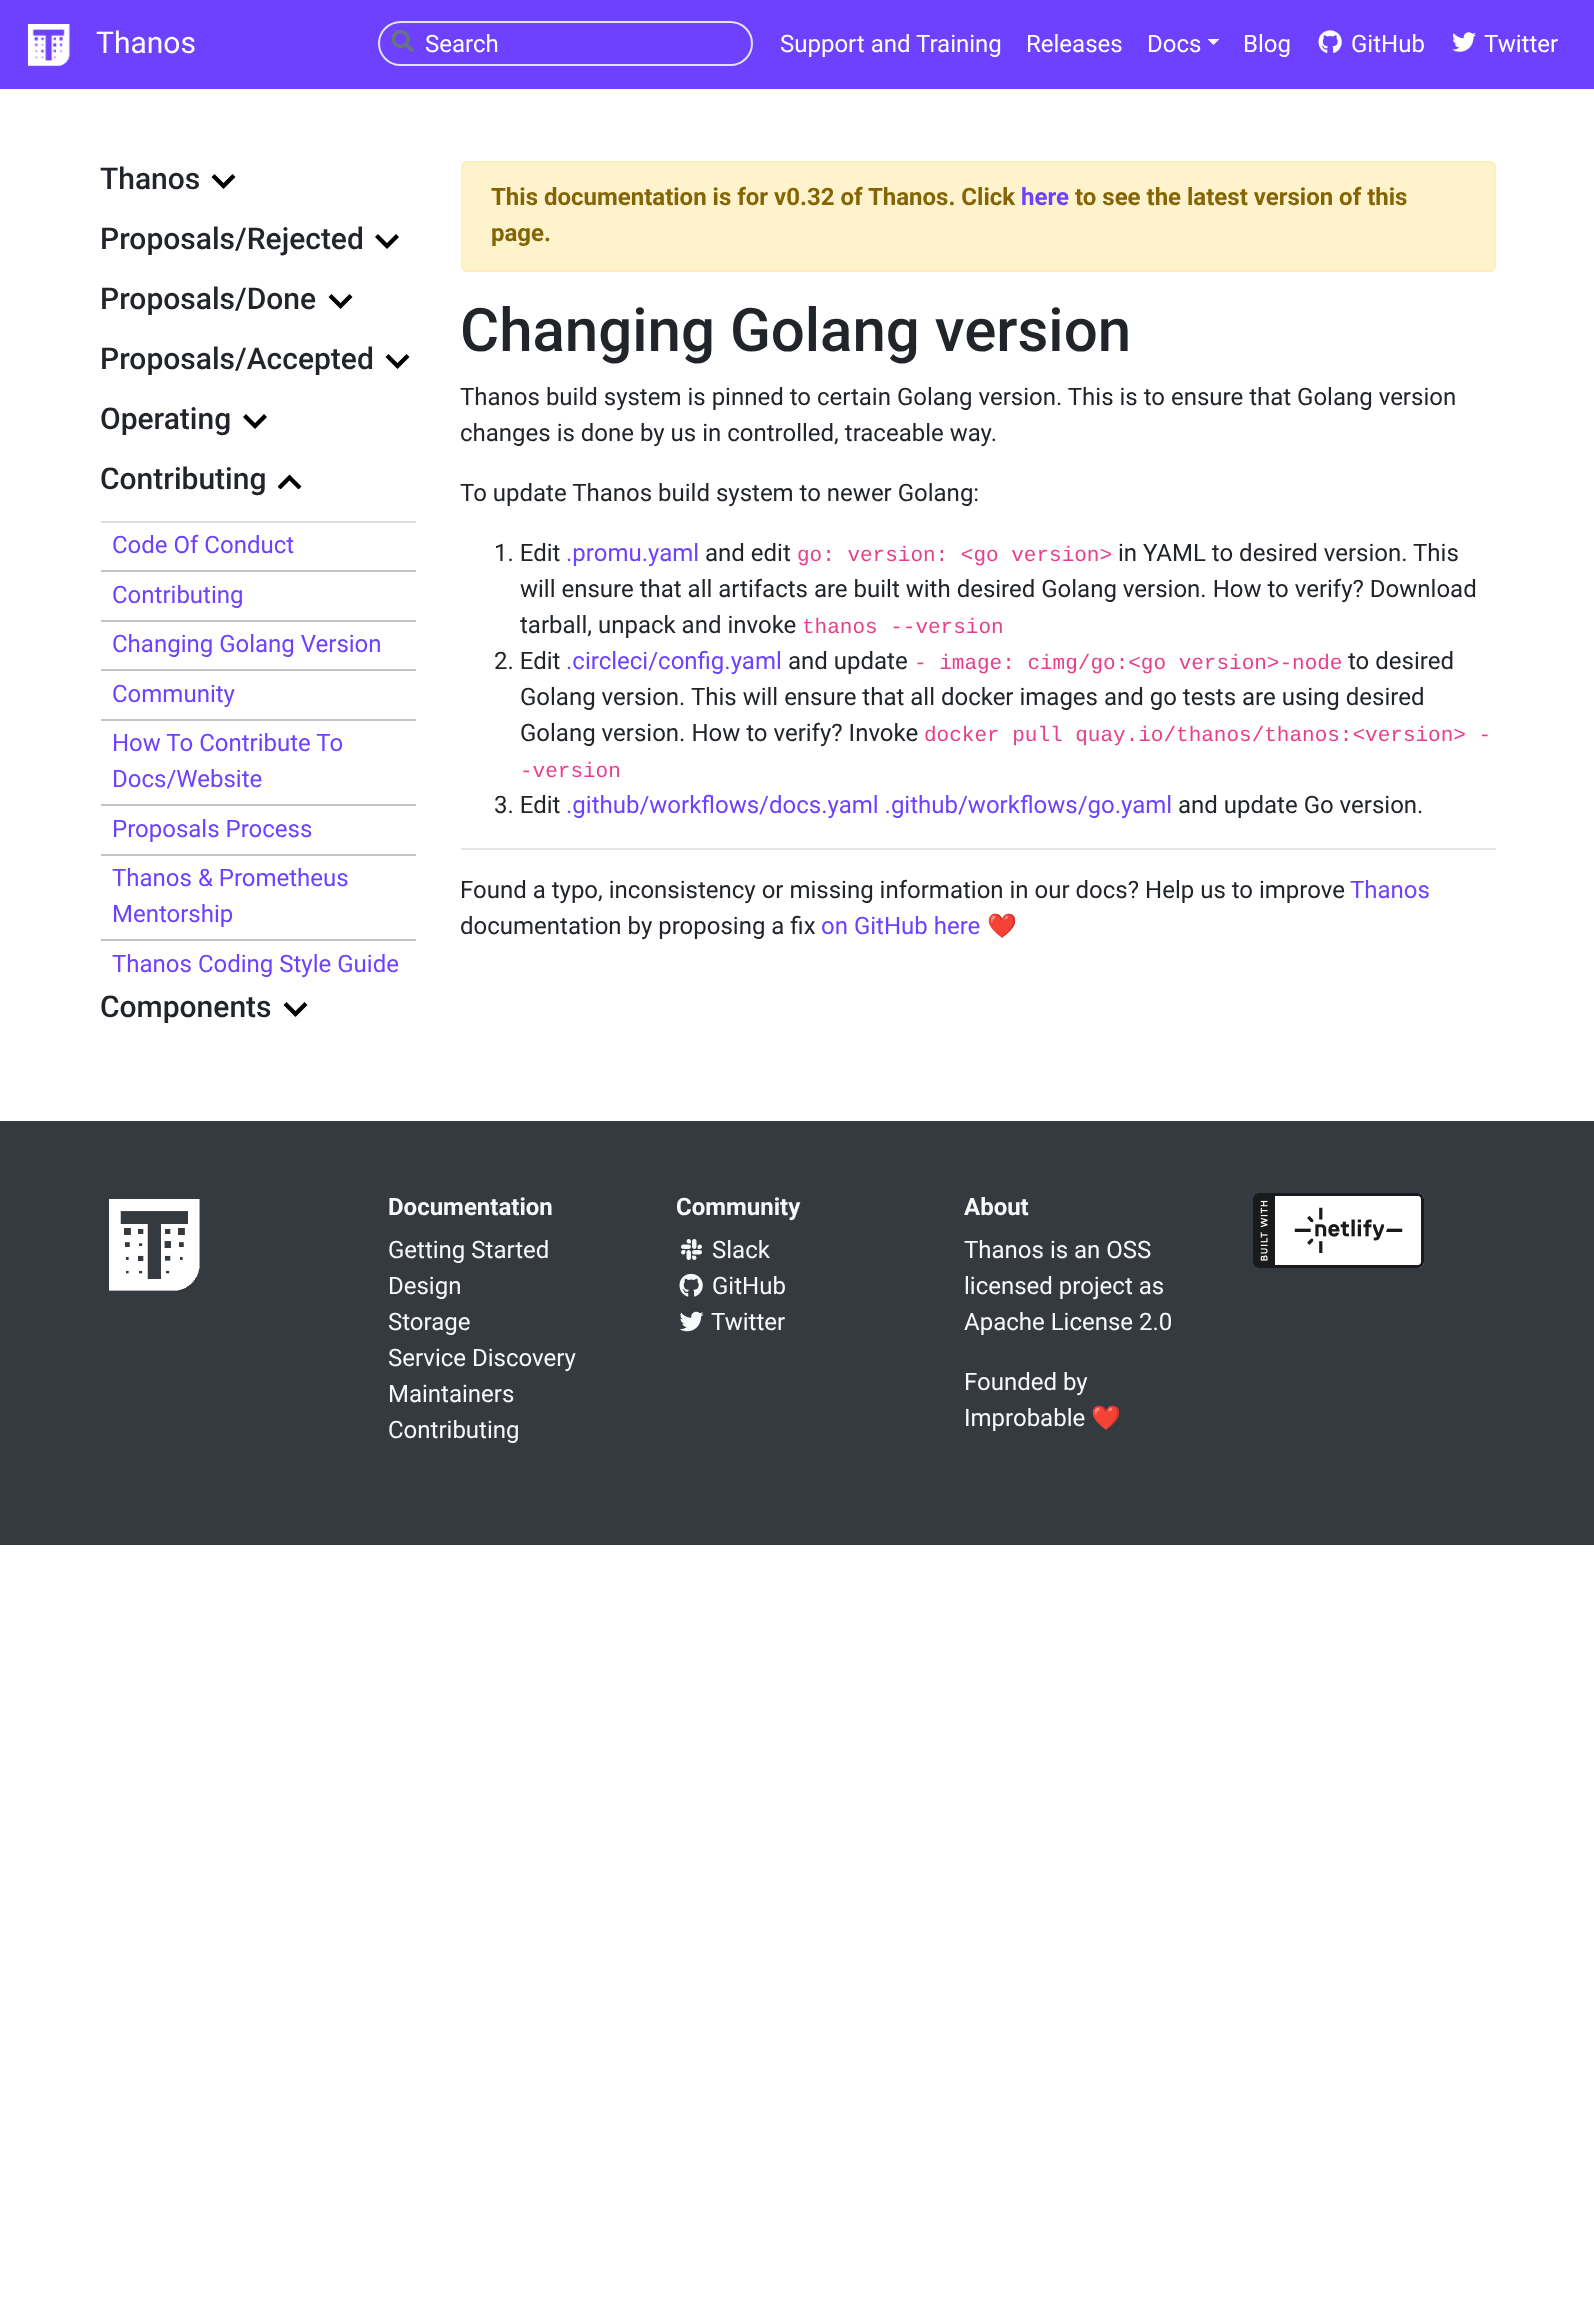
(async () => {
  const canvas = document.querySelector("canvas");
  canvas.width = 1594;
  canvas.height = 2301;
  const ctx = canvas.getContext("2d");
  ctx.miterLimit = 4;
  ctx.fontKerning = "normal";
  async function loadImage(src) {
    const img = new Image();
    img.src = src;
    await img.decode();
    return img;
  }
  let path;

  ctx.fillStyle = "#ffffff";
  ctx.fillRect(0, 0, 1594, 2301);
  ctx.fillStyle = "#6d41ff";
  ctx.fillRect(0, 0, 1594, 89);
  ctx.drawImage(await loadImage("img/1.png"), 27, 24, 43, 43);
  ctx.beginPath();
  ctx.roundRect(379, 22, 373, 43, 21.5);
  ctx.strokeStyle = "#e3e3e3";
  ctx.lineWidth = 2;
  ctx.stroke();
  ctx.drawImage(await loadImage("img/2.png"), 391, 29, 23, 24);
  ctx.fillStyle = "#ffffff";
  path = new Path2D("M1207.5 39H1219.5L1213.5 45Z");
  ctx.fill(path);
  ctx.drawImage(await loadImage("img/3.png"), 1318, 30, 24, 23);
  ctx.drawImage(await loadImage("img/4.png"), 1452, 32, 24, 20);
  ctx.fillStyle = "#000000";
  path = new Path2D("M235.5 177L232.5 174L223.5 183L214.5 174L211.5 177L223.5 189Z");
  ctx.fill(path);
  path = new Path2D("M399 237L396 234L387 243L378 234L375 237L387 249Z");
  ctx.fill(path);
  path = new Path2D("M352.5 297L349.5 294L340.5 303L331.5 294L328.5 297L340.5 309Z");
  ctx.fill(path);
  path = new Path2D("M409.5 357L406.5 354L397.5 363L388.5 354L385.5 357L397.5 369Z");
  ctx.fill(path);
  path = new Path2D("M267 417L264 414L255 423L246 414L243 417L255 429Z");
  ctx.fill(path);
  ctx.save();
  ctx.beginPath();
  ctx.rect(278, 474, 24, 15);
  ctx.clip();
  path = new Path2D("M301.5 486.5L298.5 489.5L289.5 480.5L280.5 489.5L277.5 486.5L289.5 474.5Z");
  ctx.fill(path);
  ctx.restore();
  for (const [x, y, w, h, color] of [
    [101, 521, 315, 2, "#dfdfdf"],
    [101, 570, 315, 2, "#c3c3c3"],
    [101, 620, 315, 2, "#c3c3c3"],
    [101, 669, 315, 2, "#c3c3c3"],
    [101, 719, 315, 2, "#c3c3c3"],
    [101, 804, 315, 2, "#c3c3c3"],
    [101, 854, 315, 2, "#c3c3c3"],
    [101, 939, 315, 2, "#c3c3c3"],
  ]) {
    ctx.fillStyle = color;
    ctx.fillRect(x, y, w, h);
  }
  ctx.fillStyle = "#000000";
  path = new Path2D("M307.5 1005L304.5 1002L295.5 1011L286.5 1002L283.5 1005L295.5 1017Z");
  ctx.fill(path);
  ctx.fillStyle = "#fff3cd";
  ctx.beginPath();
  ctx.roundRect(462, 162, 1033, 109, 5);
  ctx.fill();
  ctx.strokeStyle = "#ffeeba";
  ctx.stroke();
  ctx.fillStyle = "#e6e6e6";
  ctx.fillRect(461, 848, 1035, 2);
  ctx.fillStyle = "#343a40";
  ctx.fillRect(0, 1121, 1594, 424);
  ctx.drawImage(await loadImage("img/5.png"), 109, 1199, 91, 92);
  ctx.drawImage(await loadImage("img/6.png"), 681, 1239, 21, 21);
  ctx.drawImage(await loadImage("img/7.png"), 679, 1273, 24, 24);
  ctx.drawImage(await loadImage("img/8.png"), 679, 1311, 25, 21);
  ctx.drawImage(await loadImage("img/9.png"), 1253, 1193, 171, 75);
  ctx.font = "30px Roboto";
  ctx.fillStyle = "#ffffff";
  ctx.fillText("Thanos", 96, 53);
  ctx.font = "24px Roboto";
  for (const [text, x, y] of [
    ["Search", 425, 52],
    ["Support and Training", 780, 52],
    ["Releases", 1026, 52],
    ["Docs", 1147, 52],
    ["Blog", 1243, 52],
    ["GitHub", 1351, 52],
    ["Twitter", 1484, 52],
  ]) {
    ctx.fillText(text, x, y);
  }
  ctx.font = "500 30px Roboto";
  ctx.fillStyle = "#212529";
  for (const [text, x, y] of [
    ["Thanos", 100, 189],
    ["Proposals/Rejected", 100, 249],
    ["Proposals/Done", 100, 309],
    ["Proposals/Accepted", 100, 369],
    ["Operating", 100, 429],
    ["Contributing", 100, 489],
  ]) {
    ctx.fillText(text, x, y);
  }
  ctx.font = "24px Roboto";
  ctx.fillStyle = "#6d41ff";
  for (const [text, x, y] of [
    ["Code Of Conduct", 112, 553],
    ["Contributing", 112, 603],
    ["Changing Golang Version", 112, 652],
    ["Community", 112, 702],
    ["How To Contribute To", 112, 751],
    ["Docs/Website", 112, 787],
    ["Proposals Process", 112, 837],
    ["Thanos & Prometheus", 112, 886],
    ["Mentorship", 112, 922],
    ["Thanos Coding Style Guide", 112, 972],
  ]) {
    ctx.fillText(text, x, y);
  }
  ctx.font = "500 30px Roboto";
  ctx.fillStyle = "#212529";
  ctx.fillText("Components", 100, 1017);
  ctx.font = "bold 24px Roboto";
  ctx.fillStyle = "#856404";
  ctx.fillText("This documentation is for v0.32 of Thanos. Click", 491, 205);
  ctx.fillStyle = "#6d41ff";
  ctx.fillText("here", 1021, 205);
  ctx.fillStyle = "#856404";
  ctx.fillText("to see the latest version of this", 1075, 205);
  ctx.fillText("page.", 491, 241);
  ctx.font = "500 60px Roboto";
  ctx.fillStyle = "#212529";
  ctx.fillText("Changing Golang version", 460, 351);
  ctx.font = "24px Roboto";
  for (const [text, x, y] of [
    ["Thanos build system is pinned to certain Golang version. This is to ensure that Golang version", 460, 405],
    ["changes is done by us in controlled, traceable way.", 460, 441],
    ["To update Thanos build system to newer Golang:", 460, 501],
    ["1. Edit", 494, 561],
  ]) {
    ctx.fillText(text, x, y);
  }
  ctx.fillStyle = "#6d41ff";
  ctx.fillText(".promu.yaml", 566, 561);
  ctx.fillStyle = "#212529";
  ctx.fillText("and edit", 705, 561);
  ctx.font = "21px Liberation Mono";
  ctx.fillStyle = "#e83e8c";
  ctx.fillText("go: version: <go version>", 797, 561);
  ctx.font = "24px Roboto";
  ctx.fillStyle = "#212529";
  for (const [text, x, y] of [
    ["in YAML to desired version. This", 1118, 561],
    ["will ensure that all artifacts are built with desired Golang version. How to verify? Download", 520, 597],
    ["tarball, unpack and invoke", 520, 633],
  ]) {
    ctx.fillText(text, x, y);
  }
  ctx.font = "21px Liberation Mono";
  ctx.fillStyle = "#e83e8c";
  ctx.fillText("thanos --version", 802, 633);
  ctx.font = "24px Roboto";
  ctx.fillStyle = "#212529";
  ctx.fillText("2. Edit", 494, 669);
  ctx.fillStyle = "#6d41ff";
  ctx.fillText(".circleci/config.yaml", 566, 669);
  ctx.fillStyle = "#212529";
  ctx.fillText("and update", 788, 669);
  ctx.font = "21px Liberation Mono";
  ctx.fillStyle = "#e83e8c";
  ctx.fillText("- image: cimg/go:<go version>-node", 914, 669);
  ctx.font = "24px Roboto";
  ctx.fillStyle = "#212529";
  for (const [text, x, y] of [
    ["to desired", 1348, 669],
    ["Golang version. This will ensure that all docker images and go tests are using desired", 520, 705],
    ["Golang version. How to verify? Invoke", 520, 741],
  ]) {
    ctx.fillText(text, x, y);
  }
  ctx.font = "21px Liberation Mono";
  ctx.fillStyle = "#e83e8c";
  ctx.fillText("docker pull quay.io/thanos/thanos:<version> -", 924, 741);
  ctx.fillText("-version", 520, 777);
  ctx.font = "24px Roboto";
  ctx.fillStyle = "#212529";
  ctx.fillText("3. Edit", 494, 813);
  ctx.fillStyle = "#6d41ff";
  ctx.fillText(".github/workflows/docs.yaml .github/workflows/go.yaml", 566, 813);
  ctx.fillStyle = "#212529";
  ctx.fillText("and update Go version.", 1178, 813);
  ctx.fillText("Found a typo, inconsistency or missing information in our docs? Help us to improve", 460, 898);
  ctx.fillStyle = "#6d41ff";
  ctx.fillText("Thanos", 1350, 898);
  ctx.fillStyle = "#212529";
  ctx.fillText("documentation by proposing a fix", 460, 934);
  ctx.fillStyle = "#6d41ff";
  ctx.fillText("on GitHub here", 821, 934);
  ctx.font = "24px Noto Color Emoji";
  ctx.fillStyle = "#212529";
  ctx.fillText("❤️", 987, 934);
  ctx.font = "bold 24px Roboto";
  ctx.fillStyle = "#f8f9fa";
  ctx.fillText("Documentation", 388, 1215);
  ctx.font = "24px Roboto";
  for (const [text, x, y] of [
    ["Getting Started", 388, 1258],
    ["Design", 388, 1294],
    ["Storage", 388, 1330],
    ["Service Discovery", 388, 1366],
    ["Maintainers", 388, 1402],
    ["Contributing", 388, 1438],
  ]) {
    ctx.fillText(text, x, y);
  }
  ctx.font = "bold 24px Roboto";
  ctx.fillText("Community", 676, 1215);
  ctx.font = "24px Roboto";
  for (const [text, x, y] of [
    ["Slack", 712, 1258],
    ["GitHub", 712, 1294],
    ["Twitter", 711, 1330],
  ]) {
    ctx.fillText(text, x, y);
  }
  ctx.font = "bold 24px Roboto";
  ctx.fillText("About", 964, 1215);
  ctx.font = "24px Roboto";
  for (const [text, x, y] of [
    ["Thanos is an OSS", 964, 1258],
    ["licensed project as", 964, 1294],
    ["Apache License 2.0", 964, 1330],
    ["Founded by", 964, 1390],
    ["Improbable", 964, 1426],
  ]) {
    ctx.fillText(text, x, y);
  }
  ctx.font = "24px Noto Color Emoji";
  ctx.fillText("❤️", 1091, 1426);
})();
